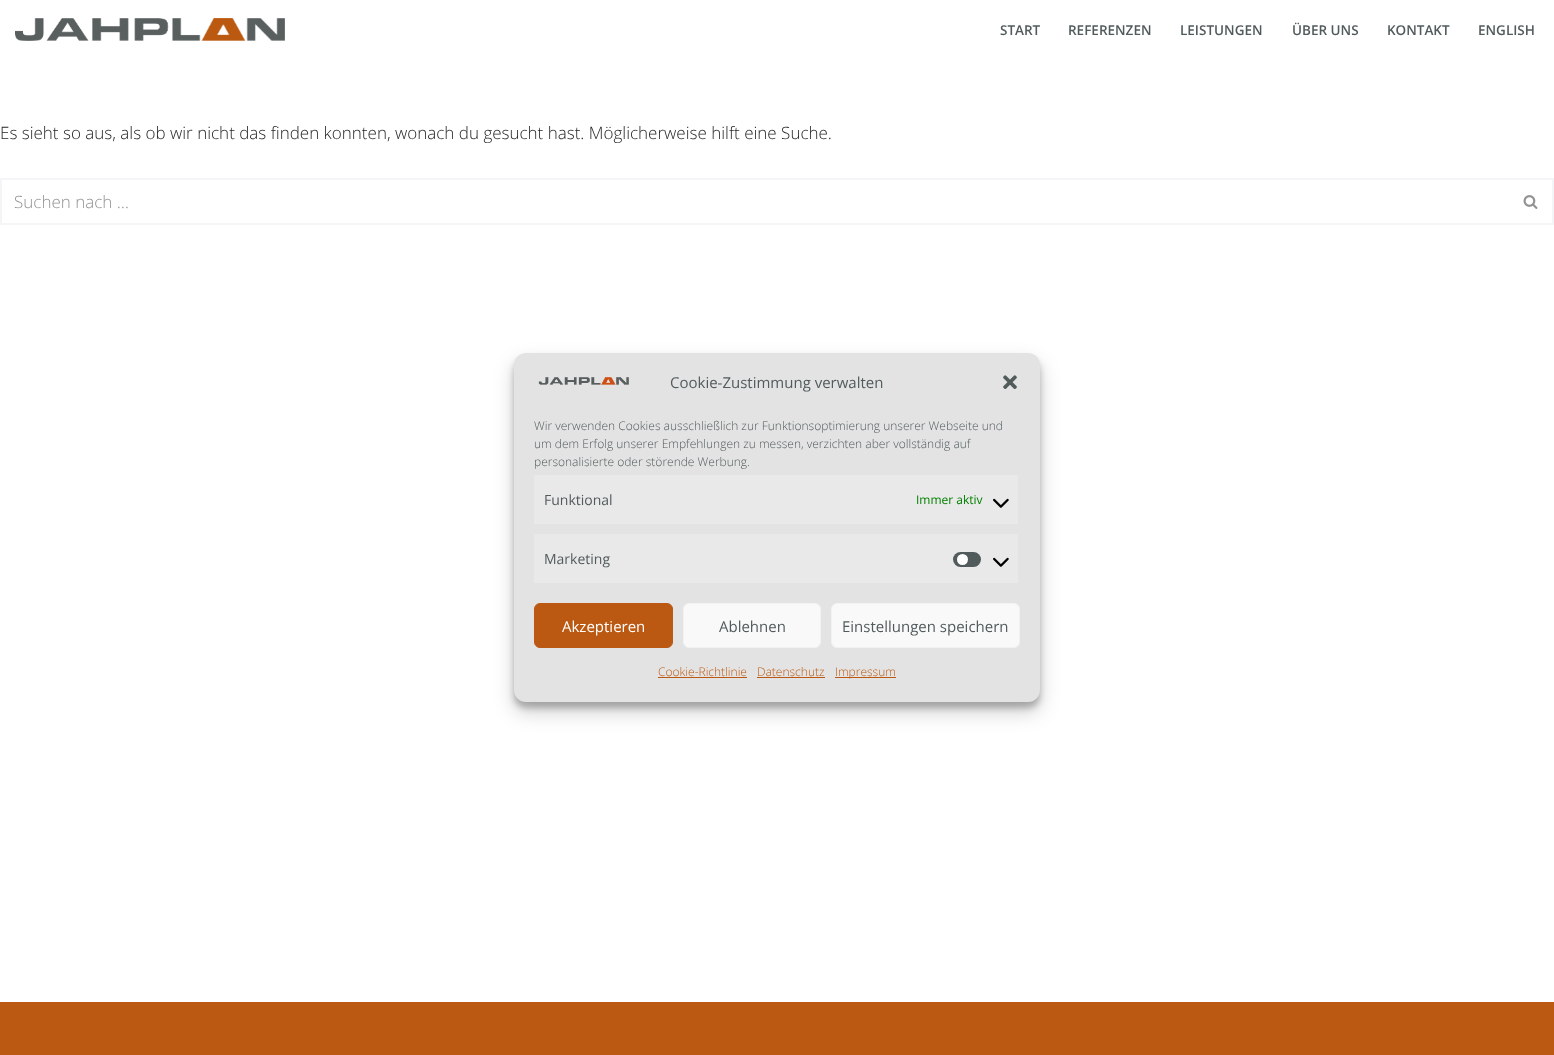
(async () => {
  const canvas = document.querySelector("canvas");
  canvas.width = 1554;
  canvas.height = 1055;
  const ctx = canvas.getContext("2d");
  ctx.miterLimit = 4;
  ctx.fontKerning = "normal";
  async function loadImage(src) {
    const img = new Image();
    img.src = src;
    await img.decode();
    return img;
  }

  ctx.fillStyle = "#ffffff";
  ctx.fillRect(0, 0, 1554, 1055);
  ctx.drawImage(await loadImage("img/1.png"), 15, 18, 270, 23);
  for (const [x, y, w, h, color] of [
    [0, 178, 1554, 2, "#f4f5f7"],
    [0, 223, 1509, 2, "#f4f5f7"],
    [0, 178, 2, 47, "#f4f5f7"],
    [1552, 178, 2, 47, "#f4f5f7"],
    [1509, 223, 45, 2, "#f4f5f7"],
  ]) {
    ctx.fillStyle = color;
    ctx.fillRect(x, y, w, h);
  }
  ctx.drawImage(await loadImage("img/2.png"), 1523, 195, 15, 14);
  ctx.fillStyle = "#bb5912";
  ctx.fillRect(0, 1002, 1554, 53);
  ctx.fillStyle = "rgba(0, 0, 0, 0.23)";
  ctx.filter = "blur(3px)";
  ctx.beginPath();
  ctx.roundRect(514, 359, 526, 349, 12);
  ctx.fill();
  ctx.filter = "none";
  ctx.fillStyle = "rgba(0, 0, 0, 0.19)";
  ctx.filter = "blur(10px)";
  ctx.beginPath();
  ctx.roundRect(514, 363, 526, 349, 12);
  ctx.fill();
  ctx.filter = "none";
  ctx.fillStyle = "#e3e3e3";
  ctx.beginPath();
  ctx.roundRect(514, 353, 526, 349, 12);
  ctx.fill();
  ctx.drawImage(await loadImage("img/3.png"), 538, 377, 91, 8);
  ctx.drawImage(await loadImage("img/4.png"), 1003, 375, 14, 14);
  ctx.fillStyle = "#e9e9e9";
  ctx.fillRect(534, 475, 484, 49);
  ctx.drawImage(await loadImage("img/5.png"), 993, 498, 16, 10);
  ctx.fillRect(534, 534, 484, 49);
  ctx.fillStyle = "#525b5c";
  ctx.beginPath();
  ctx.roundRect(953, 552, 28, 15, 7.5);
  ctx.fill();
  ctx.fillStyle = "#ffffff";
  ctx.beginPath();
  ctx.arc(962.5, 559.5, 5.5, 0, Math.PI * 2);
  ctx.fill();
  ctx.drawImage(await loadImage("img/5.png"), 993, 557, 16, 10);
  ctx.fillStyle = "#bb5912";
  ctx.beginPath();
  ctx.roundRect(534.5, 603.5, 138, 44, 5.5);
  ctx.fill();
  ctx.strokeStyle = "#bb5912";
  ctx.stroke();
  ctx.fillStyle = "#f9f9f9";
  ctx.beginPath();
  ctx.roundRect(683.5, 603.5, 137, 44, 5.5);
  ctx.fill();
  ctx.strokeStyle = "#f2f2f2";
  ctx.stroke();
  ctx.beginPath();
  ctx.roundRect(831.5, 603.5, 188, 44, 5.5);
  ctx.fill();
  ctx.stroke();
  for (const [x, y, w, h, color] of [
    [658, 677, 89, 1, "#bb5912"],
    [757, 677, 68, 1, "#bb5912"],
    [835, 677, 61, 1, "#bb5912"],
  ]) {
    ctx.fillStyle = color;
    ctx.fillRect(x, y, w, h);
  }
  ctx.font = "600 13.5px Open Sans";
  ctx.fillStyle = "#525b5c";
  for (const [text, x, y] of [
    ["START", 1000, 35],
    ["REFERENZEN", 1068, 35],
    ["LEISTUNGEN", 1180, 35],
    ["ÜBER UNS", 1292, 35],
    ["KONTAKT", 1387, 35],
    ["ENGLISH", 1478, 35],
  ]) {
    ctx.fillText(text, x, y);
  }
  ctx.font = "300 17px Open Sans";
  ctx.fillStyle = "#272626";
  ctx.fillText("Es sieht so aus, als ob wir nicht das finden konnten, wonach du gesucht hast. Möglicherweise hilft eine Suche.", 0, 139);
  ctx.fillStyle = "#939393";
  ctx.fillText("Suchen nach …", 14, 208);
  ctx.font = "15px Open Sans";
  ctx.fillStyle = "#525b5c";
  ctx.fillText("Cookie-Zustimmung verwalten", 670, 388);
  ctx.font = "300 12px Open Sans";
  for (const [text, x, y] of [
    ["Wir verwenden Cookies ausschließlich zur Funktionsoptimierung unserer Webseite und", 534, 430],
    ["um dem Erfolg unserer Empfehlungen zu messen, verzichten aber vollständig auf", 534, 448],
    ["personalisierte oder störende Werbung.", 534, 466],
  ]) {
    ctx.fillText(text, x, y);
  }
  ctx.font = "14px Open Sans";
  ctx.fillText("Funktional", 544, 505);
  ctx.font = "12px Open Sans";
  ctx.fillStyle = "#008000";
  ctx.fillText("Immer aktiv", 916, 504);
  ctx.font = "14px Open Sans";
  ctx.fillStyle = "#525b5c";
  ctx.fillText("Marketing", 544, 564);
  ctx.font = "15px Open Sans";
  ctx.fillStyle = "#ffffff";
  ctx.fillText("Akzeptieren", 562, 632);
  ctx.fillStyle = "#525b5c";
  ctx.fillText("Ablehnen", 719, 632);
  ctx.fillText("Einstellungen speichern", 842, 632);
  ctx.font = "300 12px Open Sans";
  ctx.fillStyle = "#bb5912";
  for (const [text, x, y] of [
    ["Cookie-Richtlinie", 658, 676],
    ["Datenschutz", 757, 676],
    ["Impressum", 835, 676],
  ]) {
    ctx.fillText(text, x, y);
  }
})();
